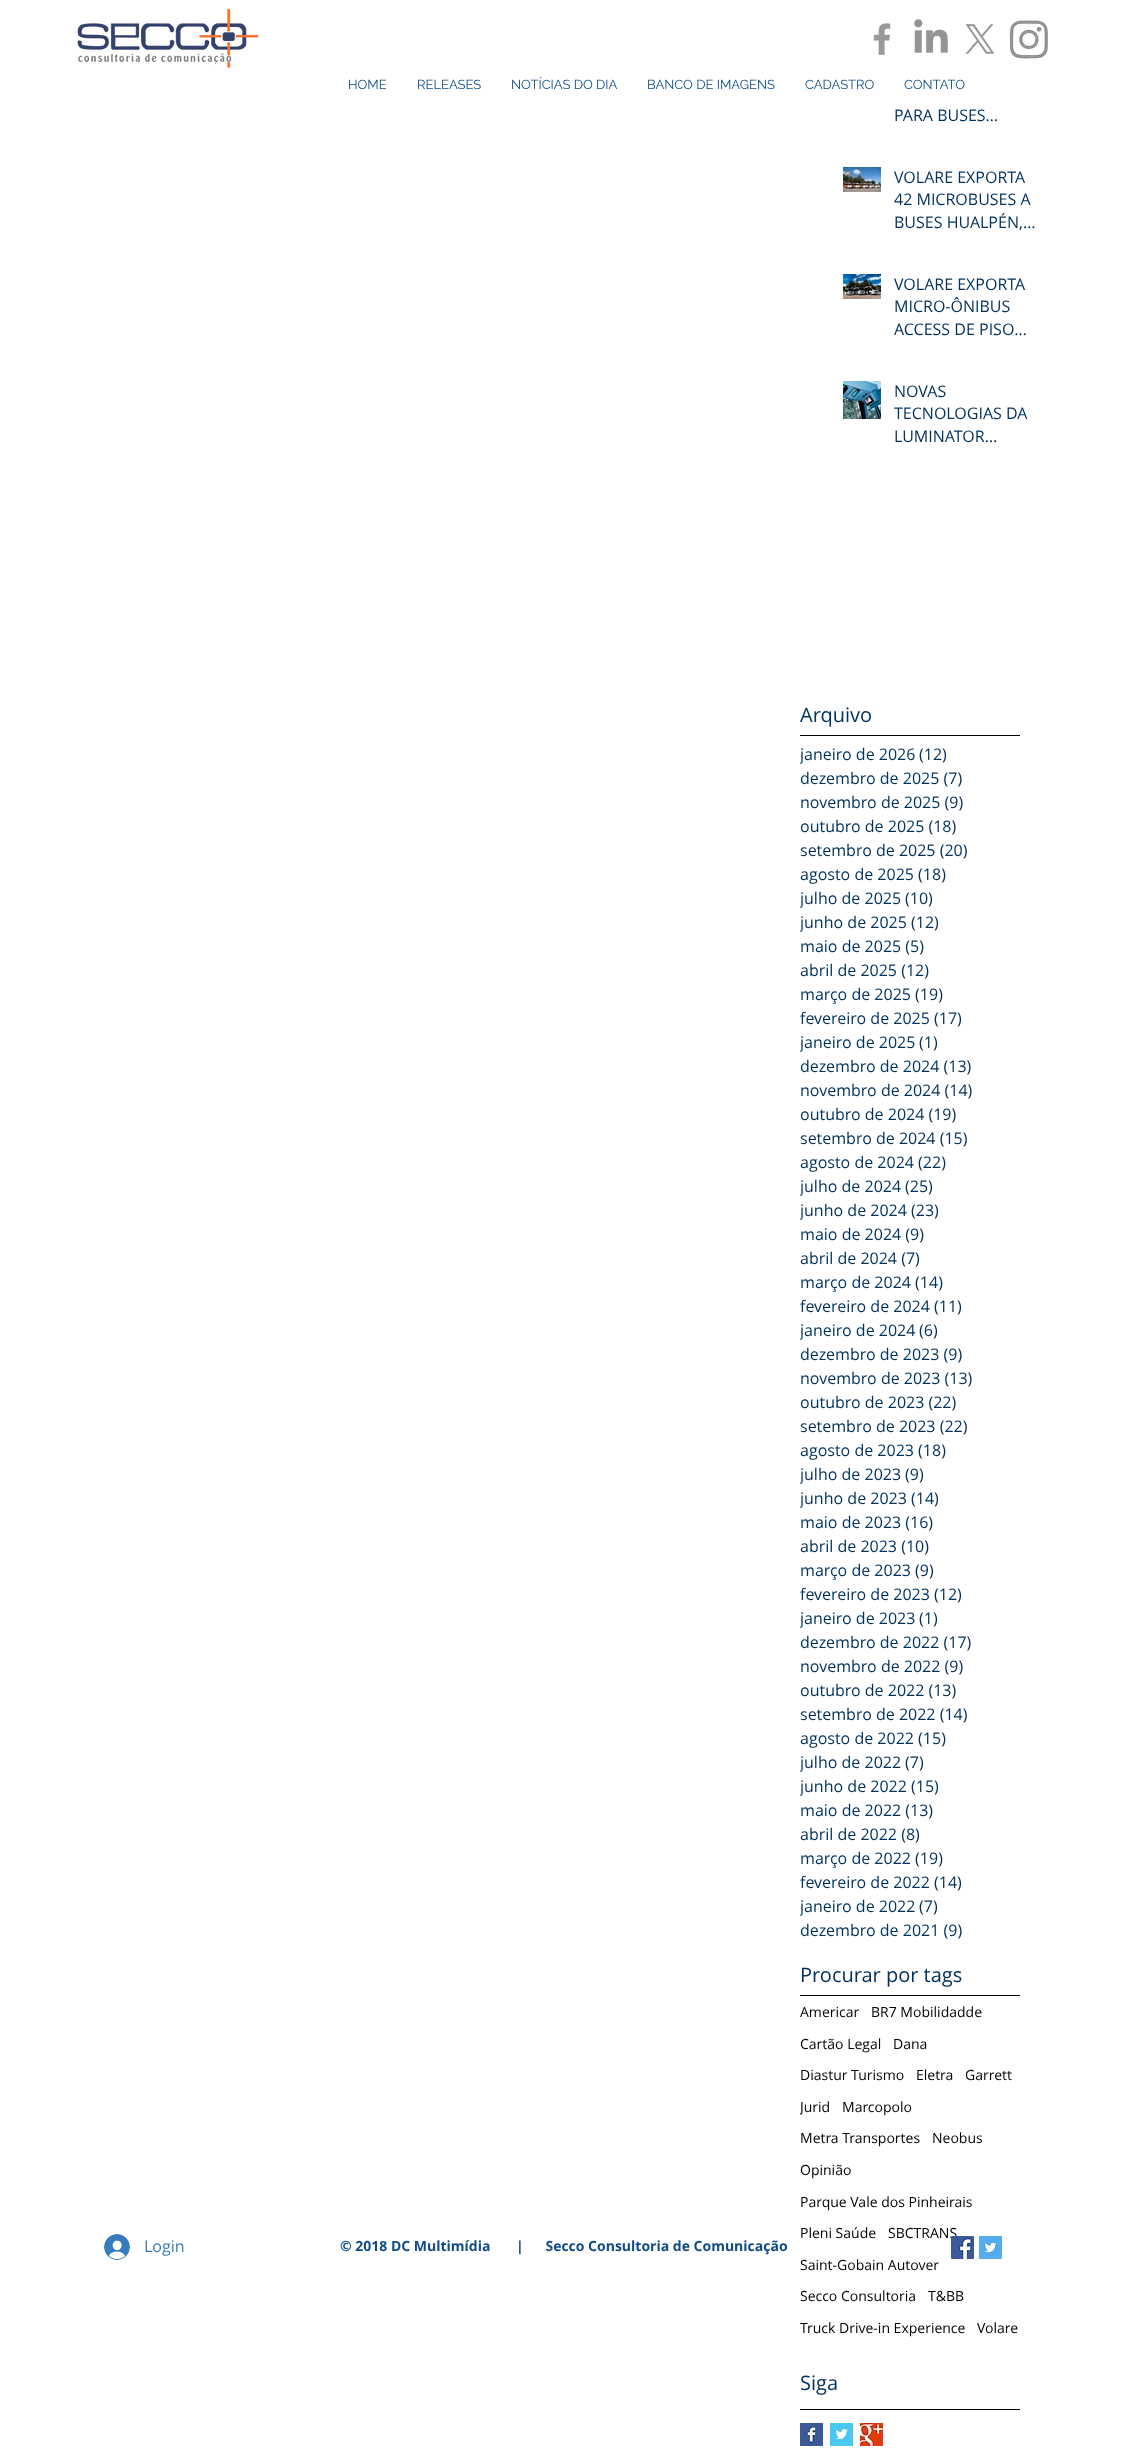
(async () => {
  const canvas = document.querySelector("canvas");
  canvas.width = 1121;
  canvas.height = 2448;
  const ctx = canvas.getContext("2d");
  ctx.miterLimit = 4;
  ctx.fontKerning = "normal";
  async function loadImage(src) {
    const img = new Image();
    img.src = src;
    await img.decode();
    return img;
  }

  ctx.fillStyle = "#ffffff";
  ctx.fillRect(0, 0, 1121, 2448);
  ctx.drawImage(await loadImage("img/1.png"), 77, 9, 182, 59);
  ctx.drawImage(await loadImage("img/2.png"), 873, 23, 18, 32);
  ctx.drawImage(await loadImage("img/3.png"), 914, 19, 34, 34);
  ctx.drawImage(await loadImage("img/4.png"), 965, 24, 30, 30);
  ctx.drawImage(await loadImage("img/5.png"), 1008, 18, 40, 42);
  ctx.drawImage(await loadImage("img/6.png"), 104, 2234, 26, 26);
  ctx.drawImage(await loadImage("img/8.png"), 979, 2236, 23, 23);
  ctx.drawImage(await loadImage("img/9.png"), 843, 167, 38, 25);
  ctx.drawImage(await loadImage("img/10.png"), 843, 274, 38, 25);
  ctx.drawImage(await loadImage("img/11.png"), 843, 381, 38, 38);
  for (const [x, y, w, h, color] of [
    [800, 735, 220, 1, "#000000"],
    [800, 1995, 220, 1, "#000000"],
    [800, 2409, 220, 1, "#000000"],
  ]) {
    ctx.fillStyle = color;
    ctx.fillRect(x, y, w, h);
  }
  ctx.drawImage(await loadImage("img/12.png"), 800, 2423, 23, 23);
  ctx.drawImage(await loadImage("img/13.png"), 830, 2423, 23, 23);
  ctx.drawImage(await loadImage("img/14.png"), 860, 2423, 23, 23);
  ctx.font = "13px Raleway";
  ctx.fillStyle = "#0f4c85";
  for (const [text, x, y] of [
    ["HOME", 348, 89],
    ["RELEASES", 417, 89],
    ["NOTÍCIAS DO DIA", 511, 89],
    ["BANCO DE IMAGENS", 647, 89],
    ["CADASTRO", 805, 89],
    ["CONTATO", 904, 89],
  ]) {
    ctx.fillText(text, x, y);
  }
  ctx.font = "16px Open Sans";
  ctx.fillStyle = "#377dbd";
  ctx.fillText("Login", 144, 2252);
  ctx.font = "bold 14px Open Sans";
  ctx.fillStyle = "#0f4c85";
  ctx.fillText("© 2018 DC Multimídia       |      Secco Consultoria de Comunicação", 340, 2251);
  ctx.font = "16px Open Sans";
  ctx.fillStyle = "#00305b";
  for (const [text, x, y] of [
    ["PARA BUSES…", 894, 121],
    ["VOLARE EXPORTA", 894, 183],
    ["42 MICROBUSES A", 894, 205],
    ["BUSES HUALPÉN,…", 894, 228],
    ["VOLARE EXPORTA", 894, 290],
    ["MICRO-ÔNIBUS", 894, 312],
    ["ACCESS DE PISO…", 894, 335],
    ["NOVAS", 894, 397],
    ["TECNOLOGIAS DA", 894, 419],
    ["LUMINATOR…", 894, 442],
  ]) {
    ctx.fillText(text, x, y);
  }
  ctx.font = "20px Open Sans";
  ctx.fillText("Arquivo", 800, 722);
  ctx.save();
  ctx.beginPath();
  ctx.rect(800, 742, 147, 24);
  ctx.clip();
  ctx.font = "16px Open Sans";
  ctx.fillText("janeiro de 2026", 800, 760);
  ctx.restore();
  ctx.font = "16px Open Sans";
  for (const [text, x, y] of [
    ["(12)", 919, 760],
    ["dezembro de 2025 (7)", 800, 784],
    ["novembro de 2025 (9)", 800, 808],
    ["outubro de 2025 (18)", 800, 832],
    ["setembro de 2025 (20)", 800, 856],
    ["agosto de 2025 (18)", 800, 880],
  ]) {
    ctx.fillText(text, x, y);
  }
  ctx.save();
  ctx.beginPath();
  ctx.rect(800, 886, 133, 24);
  ctx.clip();
  ctx.fillText("julho de 2025", 800, 904);
  ctx.restore();
  ctx.fillText("(10)", 905, 904);
  ctx.save();
  ctx.beginPath();
  ctx.rect(800, 910, 138, 24);
  ctx.clip();
  ctx.fillText("junho de 2025", 800, 928);
  ctx.restore();
  for (const [text, x, y] of [
    ["(12)", 911, 928],
    ["maio de 2025 (5)", 800, 952],
    ["abril de 2025 (12)", 800, 976],
    ["março de 2025 (19)", 800, 1000],
    ["fevereiro de 2025 (17)", 800, 1024],
  ]) {
    ctx.fillText(text, x, y);
  }
  ctx.save();
  ctx.beginPath();
  ctx.rect(800, 1030, 138, 24);
  ctx.clip();
  ctx.fillText("janeiro de 2025", 800, 1048);
  ctx.restore();
  for (const [text, x, y] of [
    ["(1)", 919, 1048],
    ["dezembro de 2024 (13)", 800, 1072],
    ["novembro de 2024 (14)", 800, 1096],
    ["outubro de 2024 (19)", 800, 1120],
    ["setembro de 2024 (15)", 800, 1144],
    ["agosto de 2024 (22)", 800, 1168],
  ]) {
    ctx.fillText(text, x, y);
  }
  ctx.save();
  ctx.beginPath();
  ctx.rect(800, 1174, 133, 24);
  ctx.clip();
  ctx.fillText("julho de 2024", 800, 1192);
  ctx.restore();
  ctx.fillText("(25)", 905, 1192);
  ctx.save();
  ctx.beginPath();
  ctx.rect(800, 1198, 138, 24);
  ctx.clip();
  ctx.fillText("junho de 2024", 800, 1216);
  ctx.restore();
  for (const [text, x, y] of [
    ["(23)", 911, 1216],
    ["maio de 2024 (9)", 800, 1240],
    ["abril de 2024 (7)", 800, 1264],
    ["março de 2024 (14)", 800, 1288],
    ["fevereiro de 2024 (11)", 800, 1312],
  ]) {
    ctx.fillText(text, x, y);
  }
  ctx.save();
  ctx.beginPath();
  ctx.rect(800, 1318, 138, 24);
  ctx.clip();
  ctx.fillText("janeiro de 2024", 800, 1336);
  ctx.restore();
  for (const [text, x, y] of [
    ["(6)", 919, 1336],
    ["dezembro de 2023 (9)", 800, 1360],
    ["novembro de 2023 (13)", 800, 1384],
    ["outubro de 2023 (22)", 800, 1408],
    ["setembro de 2023 (22)", 800, 1432],
    ["agosto de 2023 (18)", 800, 1456],
  ]) {
    ctx.fillText(text, x, y);
  }
  ctx.save();
  ctx.beginPath();
  ctx.rect(800, 1462, 123, 24);
  ctx.clip();
  ctx.fillText("julho de 2023", 800, 1480);
  ctx.restore();
  ctx.fillText("(9)", 905, 1480);
  ctx.save();
  ctx.beginPath();
  ctx.rect(800, 1486, 138, 24);
  ctx.clip();
  ctx.fillText("junho de 2023", 800, 1504);
  ctx.restore();
  for (const [text, x, y] of [
    ["(14)", 911, 1504],
    ["maio de 2023 (16)", 800, 1528],
    ["abril de 2023 (10)", 800, 1552],
    ["março de 2023 (9)", 800, 1576],
    ["fevereiro de 2023 (12)", 800, 1600],
  ]) {
    ctx.fillText(text, x, y);
  }
  ctx.save();
  ctx.beginPath();
  ctx.rect(800, 1606, 138, 24);
  ctx.clip();
  ctx.fillText("janeiro de 2023", 800, 1624);
  ctx.restore();
  for (const [text, x, y] of [
    ["(1)", 919, 1624],
    ["dezembro de 2022 (17)", 800, 1648],
    ["novembro de 2022 (9)", 800, 1672],
    ["outubro de 2022 (13)", 800, 1696],
    ["setembro de 2022 (14)", 800, 1720],
    ["agosto de 2022 (15)", 800, 1744],
  ]) {
    ctx.fillText(text, x, y);
  }
  ctx.save();
  ctx.beginPath();
  ctx.rect(800, 1750, 123, 24);
  ctx.clip();
  ctx.fillText("julho de 2022", 800, 1768);
  ctx.restore();
  ctx.fillText("(7)", 905, 1768);
  ctx.save();
  ctx.beginPath();
  ctx.rect(800, 1774, 138, 24);
  ctx.clip();
  ctx.fillText("junho de 2022", 800, 1792);
  ctx.restore();
  for (const [text, x, y] of [
    ["(15)", 911, 1792],
    ["maio de 2022 (13)", 800, 1816],
    ["abril de 2022 (8)", 800, 1840],
    ["março de 2022 (19)", 800, 1864],
    ["fevereiro de 2022 (14)", 800, 1888],
  ]) {
    ctx.fillText(text, x, y);
  }
  ctx.save();
  ctx.beginPath();
  ctx.rect(800, 1894, 138, 24);
  ctx.clip();
  ctx.fillText("janeiro de 2022", 800, 1912);
  ctx.restore();
  ctx.fillText("(7)", 919, 1912);
  ctx.fillText("dezembro de 2021 (9)", 800, 1936);
  ctx.font = "20px Open Sans";
  ctx.fillText("Procurar por tags", 800, 1982);
  ctx.font = "14px Open Sans";
  ctx.fillStyle = "#000000";
  for (const [text, x, y] of [
    ["Americar", 800, 2017],
    ["BR7 Mobilidadde", 871, 2017],
    ["Cartão Legal", 800, 2049],
    ["Dana", 893, 2049],
    ["Diastur Turismo", 800, 2080],
    ["Eletra", 916, 2080],
    ["Garrett", 965, 2080],
  ]) {
    ctx.fillText(text, x, y);
  }
  ctx.save();
  ctx.beginPath();
  ctx.rect(800, 2097, 30, 19);
  ctx.clip();
  ctx.fillText("Jurid", 800, 2112);
  ctx.restore();
  for (const [text, x, y] of [
    ["Marcopolo", 842, 2112],
    ["Metra Transportes", 800, 2143],
    ["Neobus", 932, 2143],
    ["Opinião", 800, 2175],
    ["Parque Vale dos Pinheirais", 800, 2207],
    ["Pleni Saúde", 800, 2238],
    ["SBCTRANS", 888, 2238],
  ]) {
    ctx.fillText(text, x, y);
  }
  ctx.drawImage(await loadImage("img/7.png"), 951, 2236, 23, 23);
  for (const [text, x, y] of [
    ["Saint-Gobain Autover", 800, 2270],
    ["Secco Consultoria", 800, 2301],
    ["T&BB", 928, 2301],
    ["Truck Drive-in Experience", 800, 2333],
    ["Volare", 977, 2333],
  ]) {
    ctx.fillText(text, x, y);
  }
  ctx.font = "20px Open Sans";
  ctx.fillStyle = "#00305b";
  ctx.fillText("Siga", 800, 2390);
})();
